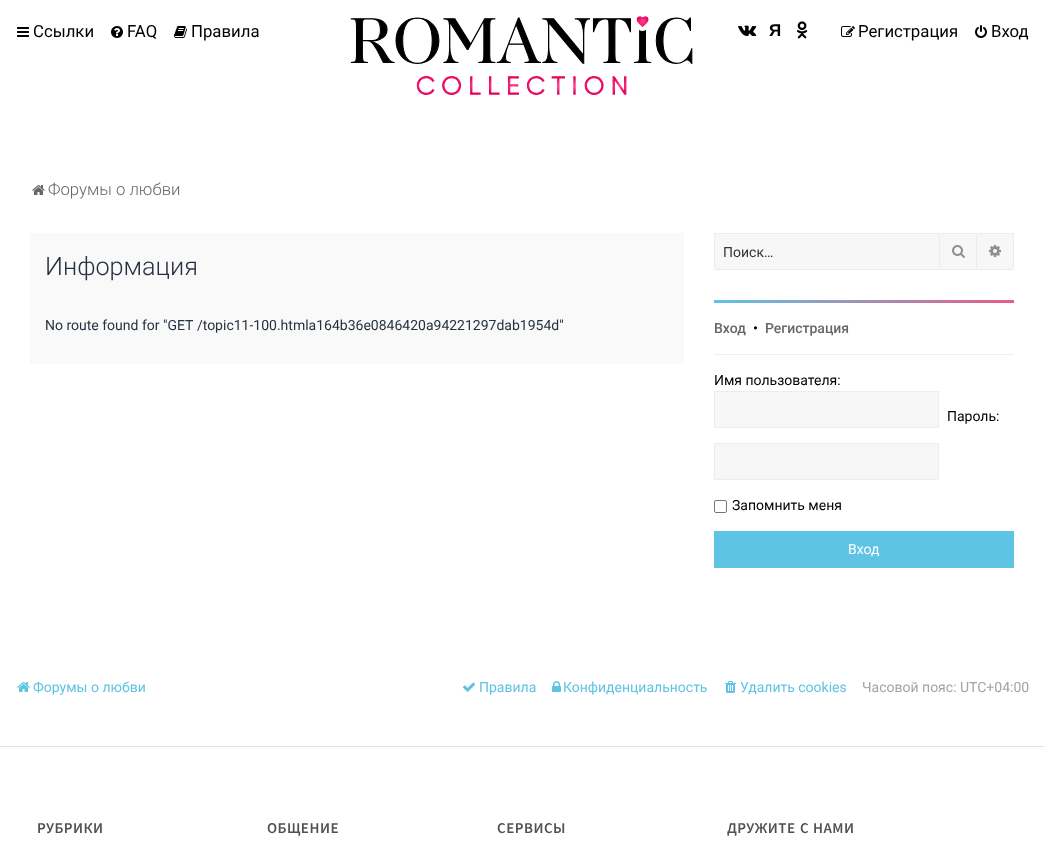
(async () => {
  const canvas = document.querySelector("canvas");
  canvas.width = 1044;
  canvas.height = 844;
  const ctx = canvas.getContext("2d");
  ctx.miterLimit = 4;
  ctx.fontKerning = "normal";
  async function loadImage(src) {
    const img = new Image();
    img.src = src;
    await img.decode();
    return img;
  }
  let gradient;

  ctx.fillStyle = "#ffffff";
  ctx.fillRect(0, 0, 1044, 844);
  ctx.drawImage(await loadImage("img/1.png"), 350, 16, 343, 79);
  ctx.drawImage(await loadImage("img/2.png"), 17, 27, 12, 10);
  ctx.drawImage(await loadImage("img/3.png"), 111, 26, 12, 12);
  ctx.drawImage(await loadImage("img/4.png"), 174, 26, 13, 12);
  ctx.drawImage(await loadImage("img/5.png"), 738, 25, 19, 11);
  ctx.drawImage(await loadImage("img/6.png"), 797, 21, 11, 18);
  ctx.drawImage(await loadImage("img/7.png"), 841, 26, 14, 11);
  ctx.drawImage(await loadImage("img/8.png"), 975, 25, 12, 13);
  ctx.drawImage(await loadImage("img/9.png"), 32, 185, 13, 10);
  for (const [x, y, w, h, color] of [
    [30, 233, 654, 131, "#f9f9f9"],
    [715, 234, 224, 35, "#f7f7f7"],
    [714, 233, 225, 1, "#edecec"],
    [714, 269, 225, 1, "#edecec"],
    [714, 233, 1, 37, "#edecec"],
  ]) {
    ctx.fillStyle = color;
    ctx.fillRect(x, y, w, h);
  }
  ctx.fillStyle = "#f7f7f7";
  ctx.beginPath();
  ctx.rect(939.5, 233.5, 37, 36);
  ctx.fill();
  ctx.strokeStyle = "#edecec";
  ctx.stroke();
  ctx.drawImage(await loadImage("img/10.png"), 952, 245, 13, 13);
  for (const [x, y, w, h, color] of [
    [977, 234, 36, 35, "#f7f7f7"],
    [977, 233, 37, 1, "#edecec"],
    [1013, 233, 1, 37, "#edecec"],
    [977, 269, 37, 1, "#edecec"],
  ]) {
    ctx.fillStyle = color;
    ctx.fillRect(x, y, w, h);
  }
  ctx.drawImage(await loadImage("img/11.png"), 989, 245, 12, 12);
  gradient = ctx.createLinearGradient(714, 302, 1014, 302);
  gradient.addColorStop(0, "#5fc3e4");
  gradient.addColorStop(1, "#e55d87");
  ctx.fillStyle = gradient;
  ctx.fillRect(714, 300, 300, 3);
  ctx.fillStyle = "#ecf0f1";
  ctx.fillRect(714, 354, 300, 1);
  ctx.fillStyle = "#f7f7f7";
  ctx.beginPath();
  ctx.rect(714.5, 391.5, 224, 36);
  ctx.fill();
  ctx.stroke();
  ctx.beginPath();
  ctx.rect(714.5, 443.5, 224, 36);
  ctx.fill();
  ctx.stroke();
  ctx.beginPath();
  ctx.roundRect(714.5, 500.5, 12, 12, 1.5);
  ctx.strokeStyle = "#767676";
  ctx.stroke();
  ctx.fillStyle = "#5fc3e4";
  ctx.fillRect(714, 531, 300, 37);
  ctx.drawImage(await loadImage("img/12.png"), 17, 682, 13, 10);
  ctx.drawImage(await loadImage("img/13.png"), 463, 682, 12, 10);
  ctx.drawImage(await loadImage("img/14.png"), 552, 681, 9, 11);
  ctx.drawImage(await loadImage("img/15.png"), 725, 681, 11, 12);
  ctx.fillStyle = "#e1e1e1";
  ctx.fillRect(0, 746, 1044, 1);
  ctx.font = "16.75px Roboto";
  ctx.fillStyle = "#000000";
  for (const [text, x, y] of [
    ["Ссылки", 33, 37],
    ["FAQ", 127, 37],
    ["Правила", 191, 37],
  ]) {
    ctx.fillText(text, x, y);
  }
  ctx.font = "bold 17px Liberation Sans";
  ctx.fillText("Я", 769, 36);
  ctx.font = "16.75px Roboto";
  ctx.fillText("Регистрация", 858, 37);
  ctx.fillText("Вход", 991, 37);
  ctx.font = "300 16.75px Roboto";
  ctx.fillStyle = "#676767";
  ctx.fillText("Форумы о любви", 48, 195);
  ctx.font = "300 25.25px Roboto";
  ctx.fillStyle = "#28313f";
  ctx.fillText("Информация", 45, 275);
  ctx.font = "14px Roboto";
  ctx.fillText("No route found for \"GET /topic11-100.htmla164b36e0846420a94221297dab1954d\"", 45, 330);
  ctx.fillStyle = "#333333";
  ctx.fillText("Поиск…", 723, 257);
  ctx.font = "500 14px Roboto";
  ctx.fillStyle = "#676767";
  ctx.fillText("Вход", 714, 333);
  ctx.fillStyle = "#000000";
  ctx.fillText("•", 753, 333);
  ctx.fillStyle = "#676767";
  ctx.fillText("Регистрация", 765, 333);
  ctx.font = "14px Roboto";
  ctx.fillStyle = "#000000";
  for (const [text, x, y] of [
    ["Имя пользователя:", 714, 385],
    ["Пароль:", 947, 421],
    ["Запомнить меня", 732, 510],
  ]) {
    ctx.fillText(text, x, y);
  }
  ctx.fillStyle = "#ffffff";
  ctx.fillText("Вход", 848, 554);
  ctx.fillStyle = "#5fc3e4";
  for (const [text, x, y] of [
    ["Форумы о любви", 33, 692],
    ["Правила", 479, 692],
    ["Конфиденциальность", 563, 692],
    ["Удалить cookies", 740, 692],
  ]) {
    ctx.fillText(text, x, y);
  }
  ctx.fillStyle = "#a4a4a7";
  ctx.fillText("Часовой пояс: UTC+04:00", 862, 692);
  ctx.letterSpacing = "0.5px";
  ctx.font = "600 15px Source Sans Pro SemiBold";
  ctx.fillStyle = "#525151";
  for (const [text, x, y] of [
    ["РУБРИКИ", 37, 833],
    ["ОБЩЕНИЕ", 267, 833],
    ["СЕРВИСЫ", 497, 833],
    ["ДРУЖИТЕ", 727, 833],
    ["С", 800, 833],
    ["НАМИ", 813, 833],
  ]) {
    ctx.fillText(text, x, y);
  }
})();
